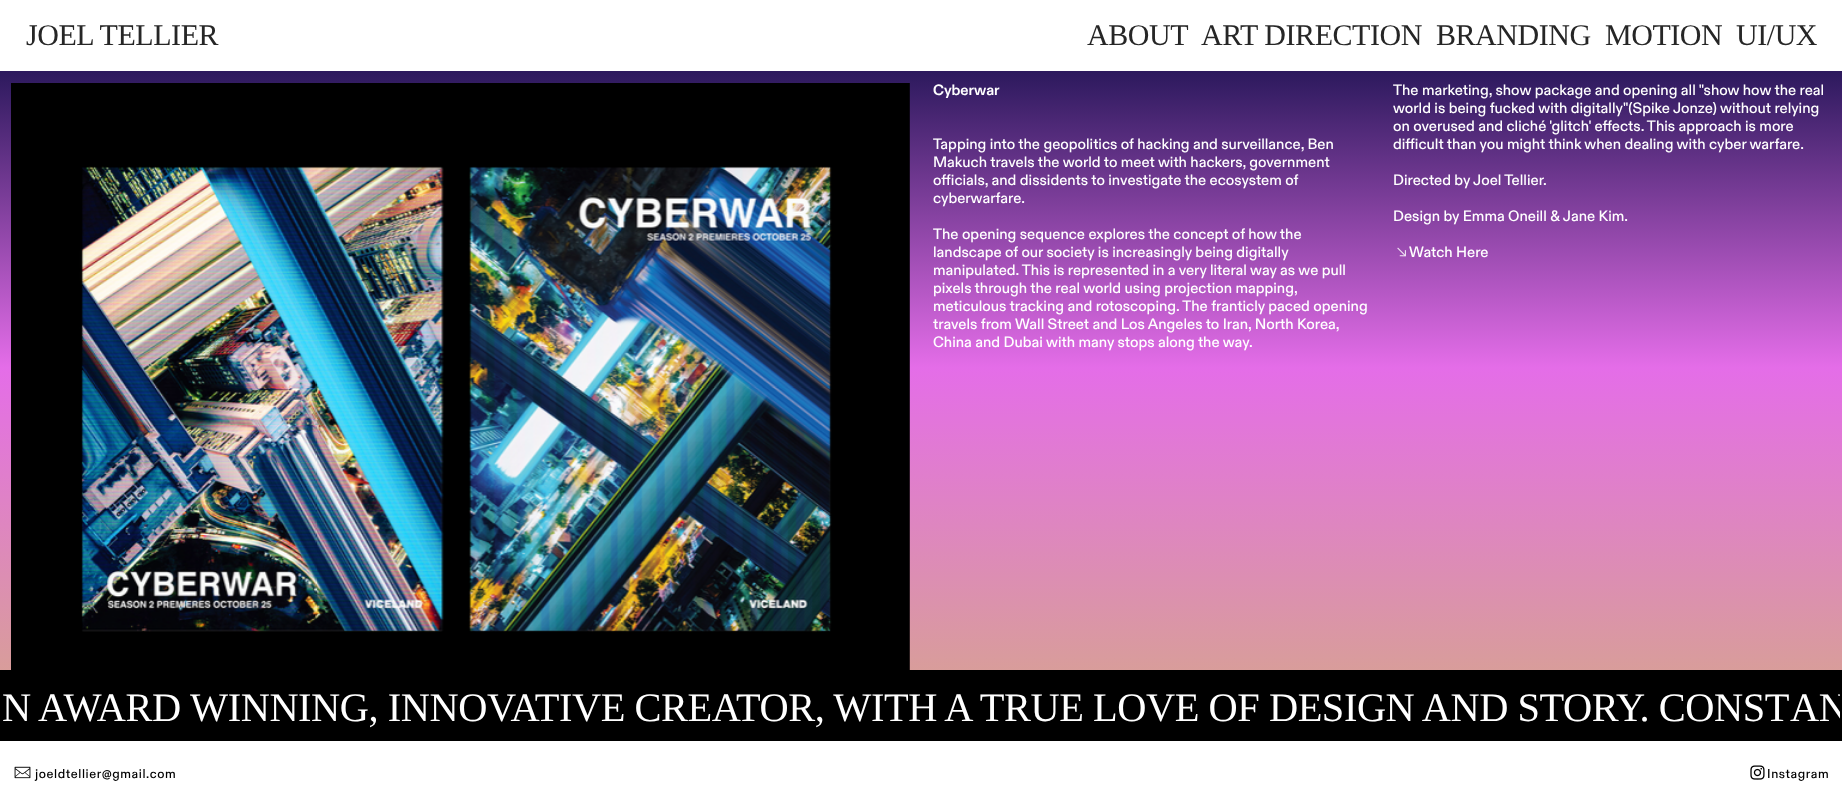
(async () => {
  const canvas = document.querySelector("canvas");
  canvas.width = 1842;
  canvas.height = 801;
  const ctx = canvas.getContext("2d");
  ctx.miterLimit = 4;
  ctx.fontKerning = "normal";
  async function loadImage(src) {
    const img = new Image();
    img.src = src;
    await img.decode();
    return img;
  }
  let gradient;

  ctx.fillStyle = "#ffffff";
  ctx.fillRect(0, 0, 1842, 801);
  gradient = ctx.createLinearGradient(921, 0, 921, 735);
  gradient.addColorStop(0, "#00053c");
  gradient.addColorStop(0.5, "#e46de8");
  gradient.addColorStop(1, "#d6a78a");
  ctx.fillStyle = gradient;
  ctx.fillRect(0, 71, 1842, 599);
  ctx.drawImage(await loadImage("img/1.png"), 11, 83, 899, 587);
  ctx.drawImage(await loadImage("img/2.png"), 1397, 247, 9, 10);
  ctx.fillStyle = "#000000";
  ctx.fillRect(0, 670, 1842, 71);
  ctx.drawImage(await loadImage("img/3.png"), 14, 766, 17, 13);
  ctx.drawImage(await loadImage("img/4.png"), 1750, 765, 15, 15);
  ctx.letterSpacing = "-0.45px";
  ctx.font = "30px Liberation Serif";
  ctx.fillStyle = "#262626";
  for (const [text, x, y] of [
    ["JOEL TELLIER", 26, 45],
    ["ABOUT", 1087, 45],
    ["ART DIRECTION", 1201, 45],
    ["BRANDING", 1436, 45],
    ["MOTION", 1605, 45],
    ["UI/UX", 1736, 45],
  ]) {
    ctx.fillText(text, x, y);
  }
  ctx.letterSpacing = "0px";
  ctx.font = "bold 15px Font";
  ctx.fillStyle = "#ffffff";
  ctx.fillText("Cyberwar", 933, 95);
  ctx.font = "500 15px Font";
  for (const [text, x, y] of [
    ["Tapping into the geopolitics of hacking and surveillance, Ben", 933, 149],
    ["Makuch travels the world to meet with hackers, government", 933, 167],
    ["officials, and dissidents to investigate the ecosystem of", 933, 185],
    ["cyberwarfare.", 933, 203],
    ["The opening sequence explores the concept of how the", 933, 239],
    ["landscape of our society is increasingly being digitally", 933, 257],
    ["manipulated. This is represented in a very literal way as we pull", 933, 275],
    ["pixels through the real world using projection mapping,", 933, 293],
    ["meticulous tracking and rotoscoping. The franticly paced opening", 933, 311],
    ["travels from Wall Street and Los Angeles to Iran, North Korea,", 933, 329],
    ["China and Dubai with many stops along the way.", 933, 347],
    ["The marketing, show package and opening all \"show how the real", 1393, 95],
    ["world is being fucked with digitally\"(Spike Jonze) without relying", 1393, 113],
    ["on overused and cliché 'glitch' effects. This approach is more", 1393, 131],
    ["difficult than you might think when dealing with cyber warfare.", 1393, 149],
    ["Directed by Joel Tellier.", 1393, 185],
    ["Design by Emma Oneill & Jane Kim.", 1393, 221],
    ["Watch Here", 1409, 257],
  ]) {
    ctx.fillText(text, x, y);
  }
  ctx.letterSpacing = "-0.45px";
  ctx.font = "40.4px Liberation Serif";
  for (const [text, x, y] of [
    ["N", 2, 721],
    ["AWARD", 38, 721],
    ["WINNING, INNOVATIVE CREATOR, WITH A TRUE LOVE OF DESIGN AND STORY. CONST", 190, 721],
  ]) {
    ctx.fillText(text, x, y);
  }
  ctx.save();
  ctx.beginPath();
  ctx.rect(3, 663, 1837, 92);
  ctx.clip();
  ctx.fillText("AN", 1790, 721);
  ctx.restore();
  ctx.letterSpacing = "0.6px";
  ctx.font = "500 12.75px Font";
  ctx.fillStyle = "#000000";
  ctx.fillText("joeldtellier@gmail.com", 35, 778);
  ctx.fillText("Instagram", 1767, 778);
})();
